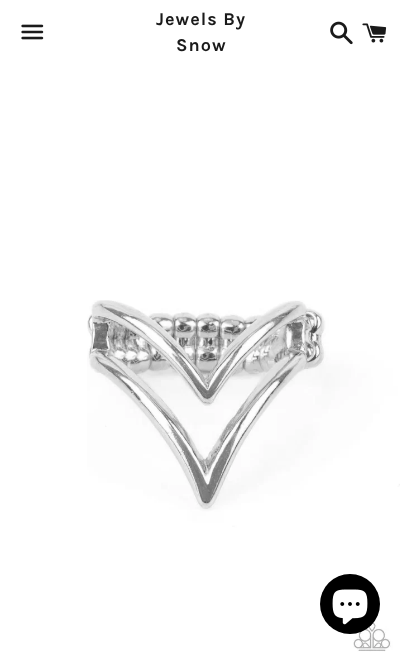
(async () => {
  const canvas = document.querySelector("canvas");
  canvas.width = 402;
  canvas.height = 655;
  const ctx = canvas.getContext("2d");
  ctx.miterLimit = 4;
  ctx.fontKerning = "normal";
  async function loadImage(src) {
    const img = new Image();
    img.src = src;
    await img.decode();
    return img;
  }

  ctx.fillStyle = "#ffffff";
  ctx.fillRect(0, 0, 402, 655);
  ctx.drawImage(await loadImage("img/1.png"), 21, 24, 23, 16);
  ctx.drawImage(await loadImage("img/2.png"), 330, 21, 23, 24);
  ctx.drawImage(await loadImage("img/3.png"), 362, 23, 25, 20);
  ctx.drawImage(await loadImage("img/4.png"), 87, 300, 313, 352);
  ctx.fillStyle = "#000000";
  ctx.beginPath();
  ctx.arc(350, 604, 30, 0, Math.PI * 2);
  ctx.fill();
  ctx.drawImage(await loadImage("img/5.png"), 332, 589, 36, 36);
  ctx.letterSpacing = "1px";
  ctx.font = "bold 18px Karla";
  ctx.fillStyle = "#1a1a1a";
  ctx.fillText("Jewels By", 156, 25);
  ctx.fillText("Snow", 176, 51);
})();
